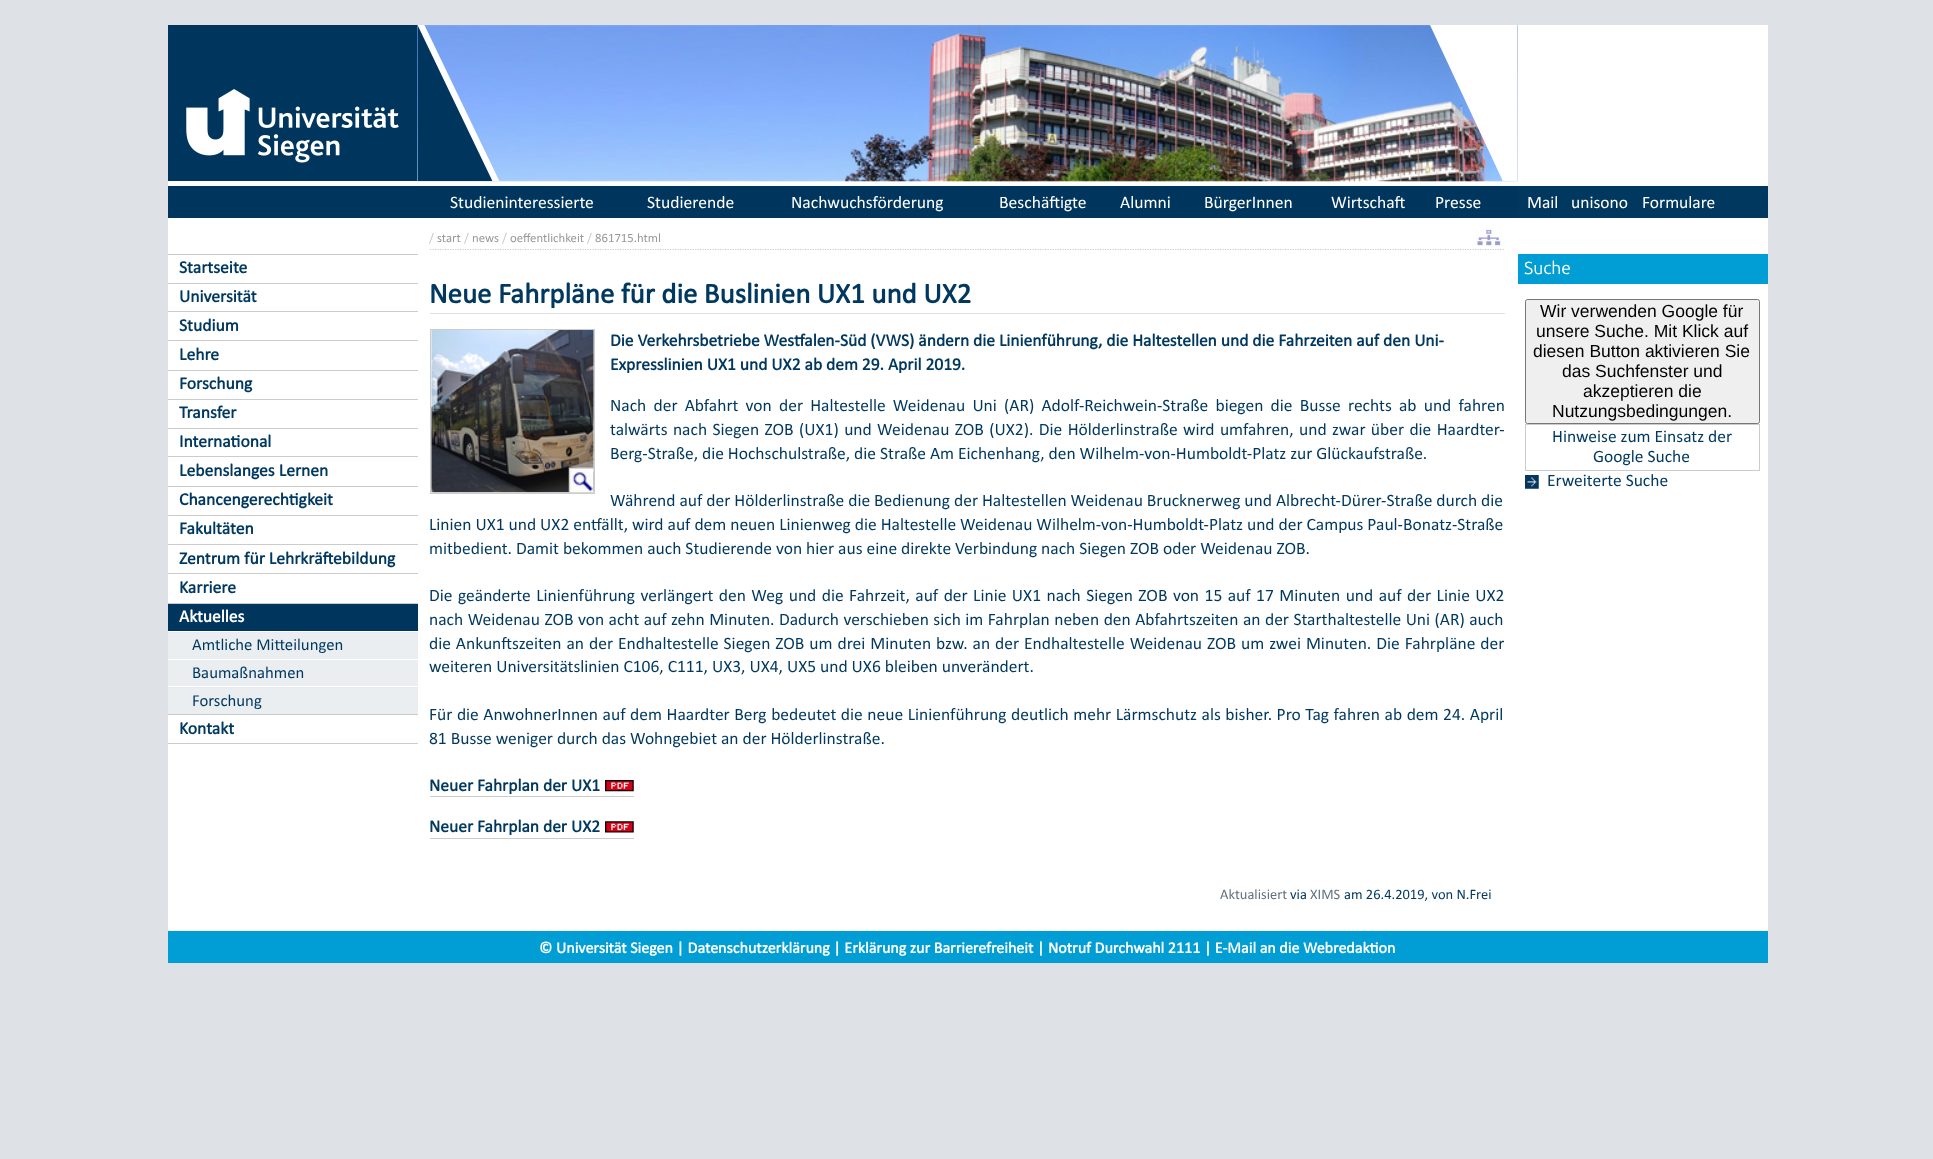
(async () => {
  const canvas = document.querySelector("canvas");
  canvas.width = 1933;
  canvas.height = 1159;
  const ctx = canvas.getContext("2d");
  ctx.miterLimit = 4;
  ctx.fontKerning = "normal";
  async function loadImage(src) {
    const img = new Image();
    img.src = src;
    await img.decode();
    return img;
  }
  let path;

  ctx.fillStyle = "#dee2e6";
  ctx.fillRect(0, 0, 1933, 1159);
  ctx.fillStyle = "#ffffff";
  ctx.fillRect(168, 25, 1600, 906);
  ctx.fillStyle = "#00365e";
  ctx.fillRect(168, 25, 250, 156);
  ctx.drawImage(await loadImage("img/1.png"), 186, 89, 213, 74);
  for (const [x, y, w, h, color] of [
    [168, 186, 1350, 32, "#00365e"],
    [168, 743, 250, 1, "#cccccc"],
    [168, 254, 250, 1, "#cccccc"],
    [168, 283, 250, 1, "#cccccc"],
    [168, 311, 250, 1, "#cccccc"],
    [168, 340, 250, 1, "#cccccc"],
    [168, 370, 250, 1, "#cccccc"],
    [168, 399, 250, 1, "#cccccc"],
    [168, 428, 250, 1, "#cccccc"],
    [168, 456, 250, 1, "#cccccc"],
    [168, 486, 250, 1, "#cccccc"],
    [168, 515, 250, 1, "#cccccc"],
    [168, 544, 250, 1, "#cccccc"],
    [168, 573, 250, 1, "#cccccc"],
    [168, 603, 250, 1, "#cccccc"],
    [168, 604, 250, 27, "#00365e"],
    [168, 632, 250, 1, "#e9e9f4"],
    [168, 633, 250, 26, "#ebeef0"],
    [168, 660, 250, 26, "#ebeef0"],
    [168, 687, 250, 1, "#e9e9f4"],
    [168, 688, 250, 26, "#ebeef0"],
    [168, 714, 250, 1, "#cccccc"],
  ]) {
    ctx.fillStyle = color;
    ctx.fillRect(x, y, w, h);
  }
  ctx.drawImage(await loadImage("img/2.png"), 417, 25, 1101, 157);
  ctx.drawImage(await loadImage("img/3.png"), 417, 25, 1101, 157);
  ctx.drawImage(await loadImage("img/4.png"), 418, 25, 82, 156);
  ctx.drawImage(await loadImage("img/5.png"), 1430, 25, 88, 156);
  path = new Path2D("M430 249.5H1505");
  ctx.strokeStyle = "#cccccc";
  ctx.lineWidth = 1.2;
  ctx.setLineDash([1.25, 1.25]);
  ctx.stroke(path);
  ctx.drawImage(await loadImage("img/6.png"), 1475, 229, 28, 17);
  ctx.fillStyle = "#dee2e6";
  ctx.fillRect(430, 313, 1075, 1);
  ctx.lineWidth = 1;
  ctx.setLineDash([]);
  ctx.strokeRect(430.5, 329.5, 164, 164);
  ctx.drawImage(await loadImage("img/7.png"), 431, 330, 163, 163);
  ctx.drawImage(await loadImage("img/8.png"), 568, 467, 26, 26);
  ctx.fillStyle = "#cccccc";
  ctx.fillRect(430, 796, 204, 1);
  ctx.drawImage(await loadImage("img/9.png"), 605, 780, 29, 12);
  ctx.fillRect(430, 838, 204, 1);
  ctx.drawImage(await loadImage("img/10.png"), 605, 821, 29, 12);
  ctx.fillStyle = "#00385f";
  ctx.fillRect(1518, 186, 250, 32);
  ctx.fillStyle = "#009ed4";
  ctx.fillRect(1518, 254, 250, 30);
  ctx.fillStyle = "#efefef";
  ctx.beginPath();
  ctx.roundRect(1525.5, 299.5, 234, 124, 2);
  ctx.fill();
  ctx.strokeStyle = "#767676";
  ctx.stroke();
  ctx.strokeStyle = "#cccccc";
  ctx.strokeRect(1525.5, 424.5, 234, 46);
  ctx.drawImage(await loadImage("img/11.png"), 1525, 475, 14, 14);
  ctx.fillStyle = "#009ed4";
  ctx.fillRect(168, 931, 1600, 32);
  ctx.font = "bold 17.6px Calibri";
  ctx.fillStyle = "#00385f";
  for (const [text, x, y] of [
    ["Startseite", 179, 273],
    ["Universität", 179, 302],
    ["Studium", 179, 331],
    ["Lehre", 179, 360],
    ["Forschung", 179, 389],
    ["Transfer", 179, 418],
    ["International", 179, 447],
    ["Lebenslanges Lernen", 179, 476],
    ["Chancengerechtigkeit", 179, 505],
    ["Fakultäten", 179, 534],
    ["Zentrum für Lehrkräftebildung", 179, 564],
    ["Karriere", 179, 593],
  ]) {
    ctx.fillText(text, x, y);
  }
  ctx.font = "bold 17.5px Calibri";
  ctx.fillStyle = "#ffffff";
  ctx.fillText("Aktuelles", 179, 622);
  ctx.font = "16.75px Calibri";
  ctx.fillStyle = "#00385f";
  for (const [text, x, y] of [
    ["Amtliche Mitteilungen", 192, 650],
    ["Baumaßnahmen", 192, 678],
    ["Forschung", 192, 706],
  ]) {
    ctx.fillText(text, x, y);
  }
  ctx.font = "bold 17.6px Calibri";
  ctx.fillText("Kontakt", 179, 734);
  ctx.font = "17.6px Calibri";
  ctx.fillStyle = "#ffffff";
  for (const [text, x, y] of [
    ["Studieninteressierte", 450, 208],
    ["Studierende", 647, 208],
    ["Nachwuchsförderung", 791, 208],
    ["Beschäftigte", 999, 208],
    ["Alumni", 1120, 208],
    ["BürgerInnen", 1204, 208],
    ["Wirtschaft", 1331, 208],
    ["Presse", 1435, 208],
  ]) {
    ctx.fillText(text, x, y);
  }
  ctx.font = "12.75px Calibri";
  ctx.fillStyle = "#cccccc";
  ctx.fillText("/", 429, 242);
  ctx.fillStyle = "#999999";
  ctx.fillText("start", 437, 242);
  ctx.fillStyle = "#cccccc";
  ctx.fillText("/", 464, 242);
  ctx.fillStyle = "#999999";
  ctx.fillText("news", 472, 242);
  ctx.fillStyle = "#cccccc";
  ctx.fillText("/", 502, 242);
  ctx.fillStyle = "#999999";
  ctx.fillText("oeffentlichkeit", 510, 242);
  ctx.fillStyle = "#cccccc";
  ctx.fillText("/", 587, 242);
  ctx.fillStyle = "#999999";
  ctx.fillText("861715.html", 595, 242);
  ctx.font = "bold 28.8px Calibri";
  ctx.fillStyle = "#00385f";
  ctx.fillText("Neue Fahrpläne für die Buslinien UX1 und UX2", 429, 303);
  ctx.font = "bold 17.5px Calibri";
  ctx.fillText("Die Verkehrsbetriebe Westfalen-Süd (VWS) ändern die Linienführung, die Haltestellen und die Fahrzeiten auf den Uni-", 610, 346);
  ctx.fillText("Expresslinien UX1 und UX2 ab dem 29. April 2019.", 610, 370);
  ctx.wordSpacing = "3.25px";
  ctx.font = "17.5px Calibri";
  ctx.fillText("Nach der Abfahrt von der Haltestelle Weidenau Uni (AR) Adolf-Reichwein-Straße biegen die Busse rechts ab und fahren", 610, 411);
  ctx.wordSpacing = "1.4px";
  ctx.fillText("talwärts nach Siegen ZOB (UX1) und Weidenau ZOB (UX2). Die Hölderlinstraße wird umfahren, und zwar über die Haardter-", 610, 435);
  ctx.wordSpacing = "0px";
  for (const [text, x, y] of [
    ["Berg-Straße, die Hochschulstraße, die Straße Am Eichenhang, den Wilhelm-von-Humboldt-Platz zur Glückaufstraße.", 610, 459],
    ["Während auf der Hölderlinstraße die Bedienung der Haltestellen Weidenau Brucknerweg und Albrecht-Dürer-Straße durch die", 610, 506],
    ["Linien UX1 und UX2 entfällt, wird auf dem neuen Linienweg die Haltestelle Weidenau Wilhelm-von-Humboldt-Platz und der Campus Paul-Bonatz-Straße", 429, 530],
    ["mitbedient. Damit bekommen auch Studierende von hier aus eine direkte Verbindung nach Siegen ZOB oder Weidenau ZOB.", 429, 554],
  ]) {
    ctx.fillText(text, x, y);
  }
  ctx.wordSpacing = "1.5px";
  ctx.fillText("Die geänderte Linienführung verlängert den Weg und die Fahrzeit, auf der Linie UX1 nach Siegen ZOB von 15 auf 17 Minuten und auf der Linie UX2", 429, 601);
  ctx.wordSpacing = "0.5px";
  ctx.fillText("nach Weidenau ZOB von acht auf zehn Minuten. Dadurch verschieben sich im Fahrplan neben den Abfahrtszeiten an der Starthaltestelle Uni (AR) auch", 429, 625);
  ctx.wordSpacing = "1px";
  ctx.fillText("die Ankunftszeiten an der Endhaltestelle Siegen ZOB um drei Minuten bzw. an der Endhaltestelle Weidenau ZOB um zwei Minuten. Die Fahrpläne der", 429, 649);
  ctx.wordSpacing = "0px";
  ctx.fillText("weiteren Universitätslinien C106, C111, UX3, UX4, UX5 und UX6 bleiben unverändert.", 429, 672);
  ctx.wordSpacing = "0.6px";
  ctx.fillText("Für die AnwohnerInnen auf dem Haardter Berg bedeutet die neue Linienführung deutlich mehr Lärmschutz als bisher. Pro Tag fahren ab dem 24. April", 429, 720);
  ctx.wordSpacing = "0px";
  ctx.fillText("81 Busse weniger durch das Wohngebiet an der Hölderlinstraße.", 429, 744);
  ctx.font = "bold 17.5px Calibri";
  ctx.fillText("Neuer Fahrplan der UX1", 429, 791);
  ctx.fillText("Neuer Fahrplan der UX2", 429, 832);
  ctx.font = "14.5px Calibri";
  ctx.fillStyle = "#64727f";
  ctx.fillText("Aktualisiert", 1220, 899);
  ctx.fillStyle = "#00385f";
  ctx.fillText("via", 1290, 899);
  ctx.fillStyle = "#64727f";
  ctx.fillText("XIMS", 1310, 899);
  ctx.fillStyle = "#00385f";
  ctx.fillText("am 26.4.2019, von N.Frei", 1344, 899);
  ctx.font = "17.5px Calibri";
  ctx.fillStyle = "#ffffff";
  for (const [text, x, y] of [
    ["Mail", 1527, 208],
    ["unisono", 1571, 208],
    ["Formulare", 1642, 208],
  ]) {
    ctx.fillText(text, x, y);
  }
  ctx.font = "17.5px Ubuntu";
  ctx.fillText("Suche", 1524, 274);
  ctx.font = "17.5px Liberation Sans";
  ctx.fillStyle = "#000000";
  for (const [text, x, y] of [
    ["Wir verwenden Google für", 1540, 317],
    ["unsere Suche. Mit Klick auf", 1536, 337],
    ["diesen Button aktivieren Sie", 1533, 357],
    ["das Suchfenster und", 1562, 377],
    ["akzeptieren die", 1583, 397],
    ["Nutzungsbedingungen.", 1552, 417],
  ]) {
    ctx.fillText(text, x, y);
  }
  ctx.font = "17.5px Calibri";
  ctx.fillStyle = "#00385f";
  for (const [text, x, y] of [
    ["Hinweise zum Einsatz der", 1552, 442],
    ["Google Suche", 1593, 462],
    ["Erweiterte Suche", 1547, 486],
  ]) {
    ctx.fillText(text, x, y);
  }
  ctx.font = "bold 16px Calibri";
  ctx.fillStyle = "#ffffff";
  ctx.fillText("© Universität Siegen | Datenschutzerklärung | Erklärung zur Barrierefreiheit | Notruf Durchwahl 2111 | E-Mail an die Webredaktion", 539, 953);
})();
